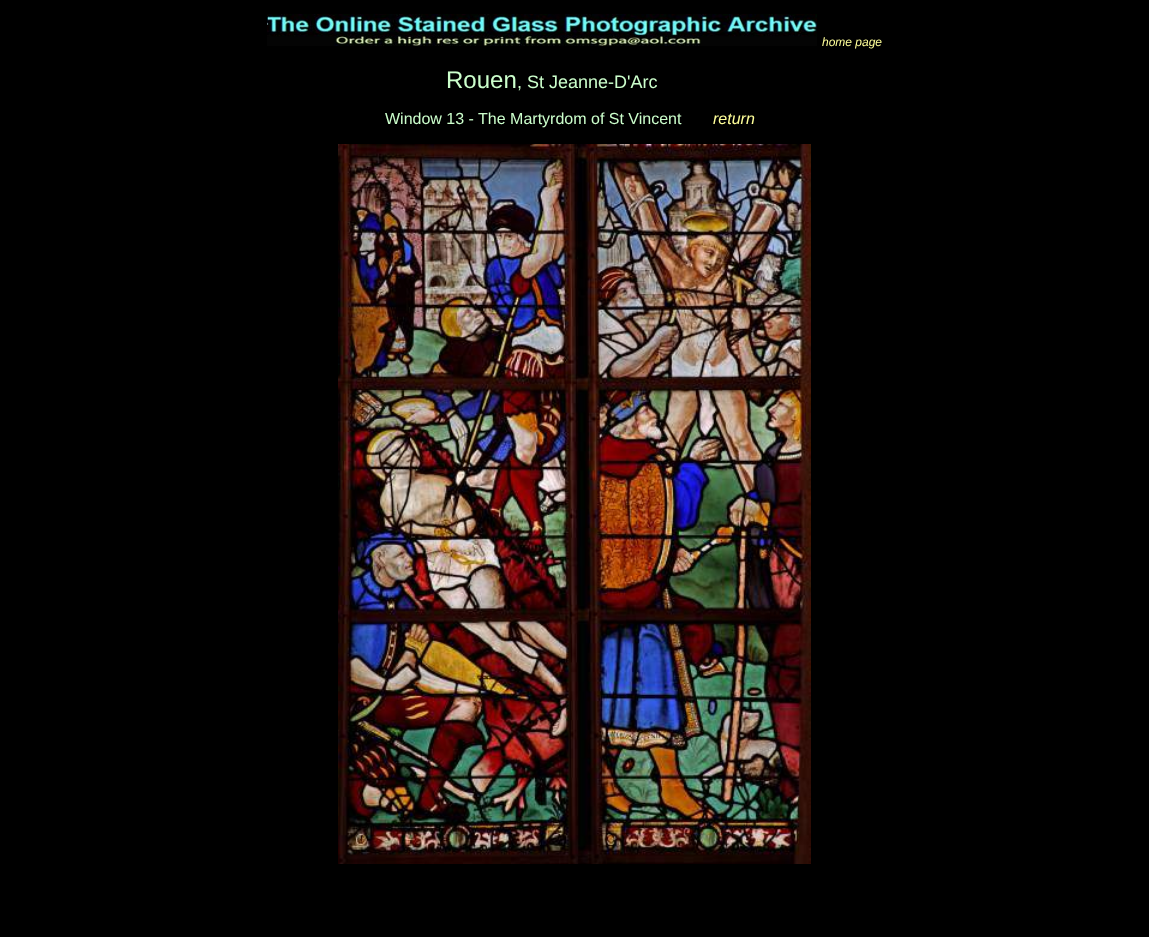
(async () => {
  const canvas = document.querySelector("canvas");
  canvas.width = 1149;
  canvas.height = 937;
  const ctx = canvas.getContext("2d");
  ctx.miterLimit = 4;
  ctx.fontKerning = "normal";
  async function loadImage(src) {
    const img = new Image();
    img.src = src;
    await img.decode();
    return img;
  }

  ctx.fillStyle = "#000000";
  ctx.fillRect(0, 0, 1149, 937);
  ctx.drawImage(await loadImage("img/1.png"), 267, 14, 550, 32);
  ctx.drawImage(await loadImage("img/2.png"), 338, 144, 473, 720);
  ctx.font = "italic 12px Liberation Sans";
  ctx.fillStyle = "#ffff99";
  ctx.fillText("home page", 822, 46);
  ctx.font = "24px Liberation Sans";
  ctx.fillStyle = "#ccffcc";
  ctx.fillText("Rouen", 446, 88);
  ctx.font = "18px Liberation Sans";
  ctx.fillText(", St Jeanne-D'Arc", 517, 88);
  ctx.font = "16px Liberation Sans";
  ctx.fillText("Window 13 - The Martyrdom of St Vincent", 385, 124);
  ctx.font = "italic 16px Liberation Sans";
  ctx.fillStyle = "#ffff99";
  ctx.fillText("return", 713, 124);
})();
